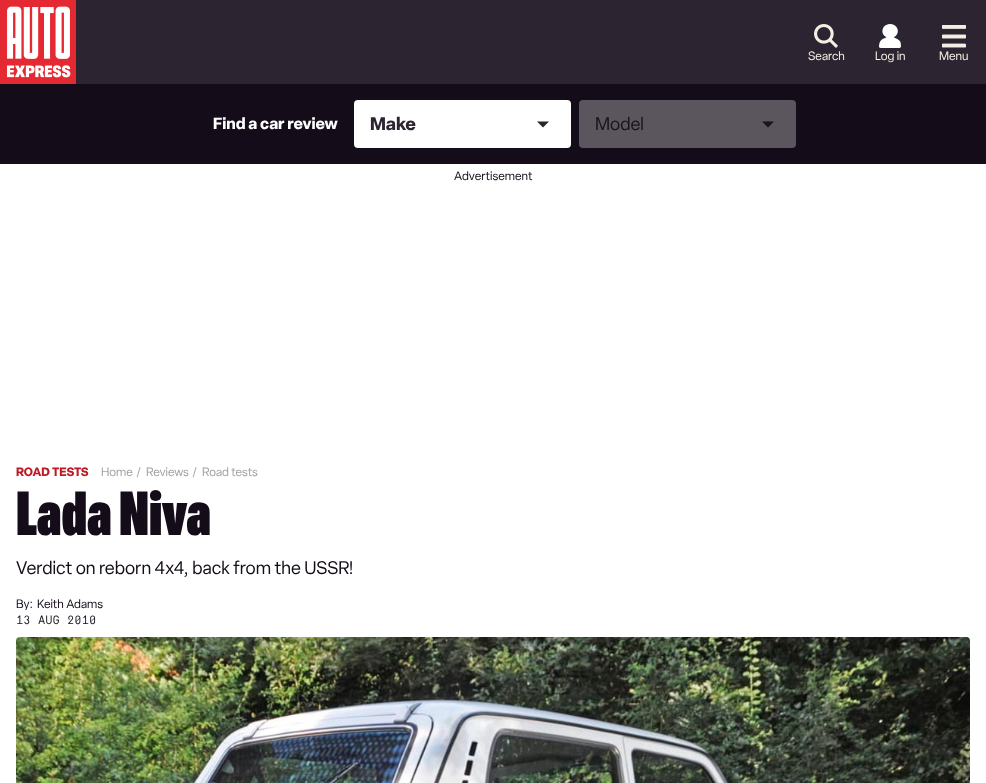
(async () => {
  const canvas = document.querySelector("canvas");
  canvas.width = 986;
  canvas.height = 783;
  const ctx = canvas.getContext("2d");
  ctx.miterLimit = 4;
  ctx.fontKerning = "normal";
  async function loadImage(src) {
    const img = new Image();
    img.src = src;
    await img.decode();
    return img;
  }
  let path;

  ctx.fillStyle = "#ffffff";
  ctx.fillRect(0, 0, 986, 783);
  ctx.fillStyle = "#2c2430";
  ctx.fillRect(76, 0, 910, 84);
  ctx.drawImage(await loadImage("img/1.png"), 0, 0, 76, 84);
  ctx.drawImage(await loadImage("img/2.png"), 814, 24, 24, 24);
  ctx.drawImage(await loadImage("img/3.png"), 879, 24, 22, 24);
  ctx.drawImage(await loadImage("img/4.png"), 942, 25, 24, 23);
  ctx.fillStyle = "#140c19";
  ctx.fillRect(0, 84, 986, 80);
  ctx.fillStyle = "#ffffff";
  ctx.beginPath();
  ctx.roundRect(354, 100, 217, 48, 4);
  ctx.fill();
  ctx.fillStyle = "#2c2430";
  path = new Path2D("M549 121.5L543 127.5L537 121.5Z");
  ctx.fill(path);
  ctx.fillStyle = "#5b555e";
  ctx.beginPath();
  ctx.roundRect(579, 100, 217, 48, 4);
  ctx.fill();
  ctx.fillStyle = "#1b1320";
  path = new Path2D("M774 121.5L768 127.5L762 121.5Z");
  ctx.fill(path);
  ctx.drawImage(await loadImage("img/5.png"), 16, 637, 954, 146);
  ctx.font = "12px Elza";
  ctx.fillStyle = "#f4efe4";
  for (const [text, x, y] of [
    ["Search", 808, 60],
    ["Log in", 875, 60],
    ["Menu", 939, 60],
  ]) {
    ctx.fillText(text, x, y);
  }
  ctx.font = "bold 16px Elza";
  ctx.fillStyle = "#ffffff";
  ctx.fillText("Find a car review", 213, 129);
  ctx.font = "bold 18px Elza";
  ctx.fillStyle = "#2c2430";
  ctx.fillText("Make", 370, 130);
  ctx.font = "18px Elza";
  ctx.fillStyle = "#1b1320";
  ctx.fillText("Model", 595, 130);
  ctx.font = "12px Elza";
  ctx.fillStyle = "#140c19";
  ctx.fillText("Advertisement", 454, 180);
  ctx.font = "bold 12px Elza";
  ctx.fillStyle = "#bd1a23";
  ctx.fillText("ROAD TESTS", 16, 476);
  ctx.font = "12px Elza";
  ctx.fillStyle = "#a1a1a1";
  for (const [text, x, y] of [
    ["Home", 101, 476],
    ["/", 136, 476],
    ["Reviews", 146, 476],
    ["/", 192, 476],
    ["Road tests", 202, 476],
  ]) {
    ctx.fillText(text, x, y);
  }
  ctx.font = "900 64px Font";
  ctx.fillStyle = "#140c19";
  ctx.fillText("Lada Niva", 16, 535);
  ctx.font = "18px Elza";
  ctx.fillText("Verdict on reborn 4x4, back from the USSR!", 16, 574);
  ctx.font = "12px Elza";
  ctx.fillText("By:", 16, 608);
  ctx.fillText("Keith Adams", 37, 608);
  ctx.font = "12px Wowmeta";
  ctx.fillText("13 AUG 2010", 16, 624);
})();
